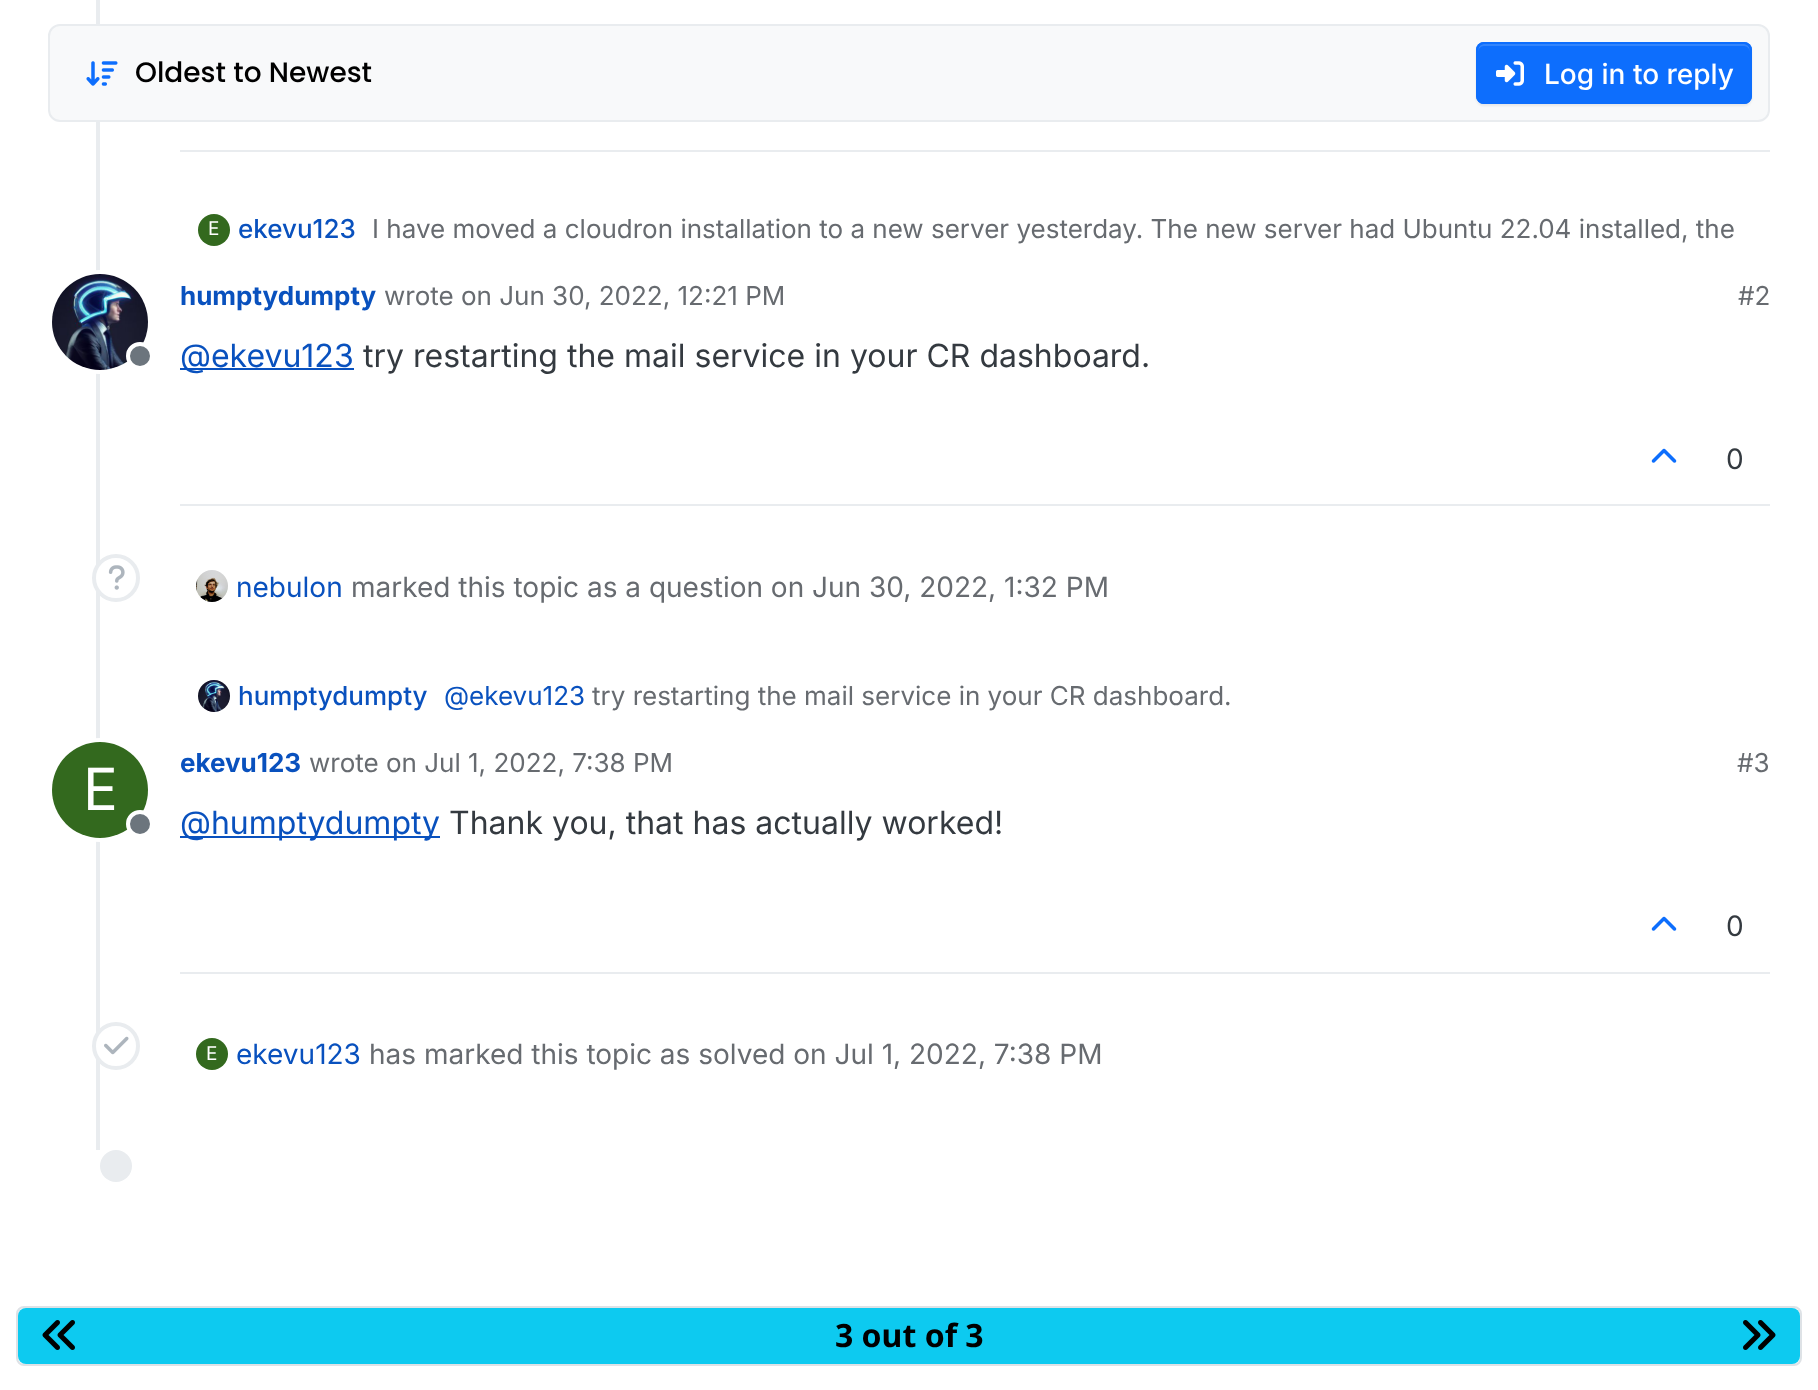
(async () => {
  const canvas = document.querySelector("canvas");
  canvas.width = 1818;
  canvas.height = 1390;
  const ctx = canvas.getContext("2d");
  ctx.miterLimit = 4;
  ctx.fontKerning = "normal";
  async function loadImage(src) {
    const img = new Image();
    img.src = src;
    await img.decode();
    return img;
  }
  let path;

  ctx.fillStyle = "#ffffff";
  ctx.fillRect(0, 0, 1818, 1390);
  ctx.fillStyle = "#e9ecef";
  ctx.fillRect(96, 0, 4, 1150);
  ctx.fillStyle = "#f8f9fa";
  ctx.beginPath();
  ctx.roundRect(49, 25, 1720, 96, 11);
  ctx.fill();
  ctx.strokeStyle = "#e9ecef";
  ctx.lineWidth = 2;
  ctx.stroke();
  ctx.drawImage(await loadImage("img/1.png"), 86, 61, 32, 25);
  ctx.fillStyle = "rgba(0, 0, 0, 0.07)";
  ctx.filter = "blur(1px)";
  ctx.beginPath();
  ctx.roundRect(1476, 44, 276, 62, 8);
  ctx.fill();
  ctx.filter = "none";
  ctx.fillStyle = "#0d6efd";
  ctx.beginPath();
  ctx.roundRect(1476, 42, 276, 62, 8);
  ctx.fill();
  ctx.fillStyle = "#3184fd";
  path = new Path2D("M1484 46H1744C1747 46 1750 49 1750 52C1750 49 1749 45 1745 44H1483C1479 45 1478 49 1478 52C1478 49 1481 46 1484 46Z");
  ctx.fill(path);
  ctx.beginPath();
  ctx.roundRect(1477, 43, 274, 60, 7);
  ctx.strokeStyle = "#0d6efd";
  ctx.stroke();
  ctx.drawImage(await loadImage("img/2.png"), 1496, 61, 28, 25);
  ctx.fillStyle = "#e9ecef";
  ctx.fillRect(180, 150, 1590, 2);
  ctx.fillStyle = "#33691e";
  ctx.beginPath();
  ctx.arc(214, 230, 16, 0, Math.PI * 2);
  ctx.fill();
  ctx.beginPath();
  ctx.arc(100, 322, 50, 0, Math.PI * 2);
  ctx.strokeStyle = "#ffffff";
  ctx.lineWidth = 4;
  ctx.stroke();
  ctx.drawImage(await loadImage("img/3.png"), 52, 274, 96, 96);
  ctx.fillStyle = "#6c757d";
  ctx.beginPath();
  ctx.arc(140, 356, 12, 0, Math.PI * 2);
  ctx.fill();
  ctx.stroke();
  ctx.fillStyle = "#0951be";
  ctx.fillRect(180, 368, 174, 2);
  ctx.fillStyle = "#e9ecef";
  ctx.fillRect(180, 504, 1590, 2);
  ctx.drawImage(await loadImage("img/4.png"), 1651, 448, 26, 15);
  ctx.fillStyle = "#ffffff";
  ctx.beginPath();
  ctx.arc(116, 578, 22, 0, Math.PI * 2);
  ctx.fill();
  ctx.strokeStyle = "#e9ecef";
  ctx.stroke();
  ctx.drawImage(await loadImage("img/5.png"), 108, 565, 17, 25);
  ctx.drawImage(await loadImage("img/6.png"), 196, 570, 32, 32);
  ctx.drawImage(await loadImage("img/7.png"), 198, 680, 32, 32);
  ctx.beginPath();
  ctx.arc(100, 790, 50, 0, Math.PI * 2);
  ctx.strokeStyle = "#ffffff";
  ctx.stroke();
  ctx.fillStyle = "#33691e";
  ctx.beginPath();
  ctx.arc(100, 790, 48, 0, Math.PI * 2);
  ctx.fill();
  ctx.fillStyle = "#6c757d";
  ctx.beginPath();
  ctx.arc(140, 824, 12, 0, Math.PI * 2);
  ctx.fill();
  ctx.stroke();
  ctx.fillStyle = "#0951be";
  ctx.fillRect(180, 836, 260, 2);
  ctx.fillStyle = "#e9ecef";
  ctx.fillRect(180, 972, 1590, 2);
  ctx.drawImage(await loadImage("img/4.png"), 1651, 916, 26, 15);
  ctx.fillStyle = "#ffffff";
  ctx.beginPath();
  ctx.arc(116, 1046, 22, 0, Math.PI * 2);
  ctx.fill();
  ctx.strokeStyle = "#e9ecef";
  ctx.stroke();
  ctx.drawImage(await loadImage("img/8.png"), 104, 1036, 25, 19);
  ctx.fillStyle = "#33691e";
  ctx.beginPath();
  ctx.arc(212, 1054, 16, 0, Math.PI * 2);
  ctx.fill();
  ctx.fillStyle = "#e9ecef";
  ctx.beginPath();
  ctx.arc(116, 1166, 16, 0, Math.PI * 2);
  ctx.fill();
  ctx.fillStyle = "#f8f9fa";
  ctx.beginPath();
  ctx.roundRect(17, 1307, 1784, 58, 7);
  ctx.fill();
  ctx.strokeStyle = "#dee2e6";
  ctx.lineWidth = 2;
  ctx.stroke();
  ctx.fillStyle = "#0dcaf0";
  ctx.beginPath();
  ctx.roundRect(18, 1308, 1782, 56, 8);
  ctx.fill();
  ctx.drawImage(await loadImage("img/9.png"), 42, 1320, 33, 30);
  ctx.drawImage(await loadImage("img/10.png"), 1743, 1320, 33, 30);
  ctx.font = "500 28px Poppins";
  ctx.fillStyle = "#000000";
  ctx.fillText("Oldest to Newest", 135, 82);
  ctx.font = "500 28px Inter";
  ctx.fillStyle = "#ffffff";
  ctx.fillText("Log in to reply", 1544, 84);
  ctx.font = "19px Inter";
  ctx.fillText("E", 208, 235);
  ctx.font = "500 26px Inter";
  ctx.fillStyle = "#0951be";
  ctx.fillText("ekevu123", 238, 238);
  ctx.font = "26px Inter";
  ctx.fillStyle = "#676b70";
  ctx.fillText("I have moved a cloudron installation to a new server yesterday. The new server had Ubuntu 22.04 installed, the", 372, 238);
  ctx.font = "bold 26px Inter";
  ctx.fillStyle = "#0951be";
  ctx.fillText("humptydumpty", 180, 305);
  ctx.font = "26px Inter";
  ctx.fillStyle = "#676b70";
  ctx.fillText("wrote on Jun 30, 2022, 12:21 PM", 384, 305);
  ctx.fillText("#2", 1738, 305);
  ctx.font = "32px Inter";
  ctx.fillStyle = "#0951be";
  ctx.fillText("@ekevu123", 180, 367);
  ctx.fillStyle = "#343a40";
  ctx.fillText("try restarting the mail service in your CR dashboard.", 363, 367);
  ctx.font = "28px Inter";
  ctx.fillText("0", 1726, 469);
  ctx.fillStyle = "#0951be";
  ctx.fillText("nebulon", 236, 597);
  ctx.fillStyle = "#676b70";
  ctx.fillText("marked this topic as a question on Jun 30, 2022, 1:32 PM", 351, 597);
  ctx.font = "500 26px Inter";
  ctx.fillStyle = "#0951be";
  ctx.fillText("humptydumpty", 238, 705);
  ctx.font = "26px Inter";
  ctx.fillText("@ekevu123", 444, 705);
  ctx.fillStyle = "#676b70";
  ctx.fillText("try restarting the mail service in your CR dashboard.", 592, 705);
  ctx.font = "58px Inter";
  ctx.fillStyle = "#ffffff";
  ctx.fillText("E", 83, 810);
  ctx.font = "bold 26px Inter";
  ctx.fillStyle = "#0951be";
  ctx.fillText("ekevu123", 180, 772);
  ctx.font = "26px Inter";
  ctx.fillStyle = "#676b70";
  ctx.fillText("wrote on Jul 1, 2022, 7:38 PM", 309, 772);
  ctx.fillText("#3", 1737, 772);
  ctx.font = "32px Inter";
  ctx.fillStyle = "#0951be";
  ctx.fillText("@humptydumpty", 180, 834);
  ctx.fillStyle = "#343a40";
  ctx.fillText("Thank you, that has actually worked!", 449, 834);
  ctx.font = "28px Inter";
  ctx.fillText("0", 1726, 936);
  ctx.font = "19px Inter";
  ctx.fillStyle = "#ffffff";
  ctx.fillText("E", 206, 1060);
  ctx.font = "28px Inter";
  ctx.fillStyle = "#0951be";
  ctx.fillText("ekevu123", 236, 1064);
  ctx.fillStyle = "#676b70";
  ctx.fillText("has marked this topic as solved on Jul 1, 2022, 7:38 PM", 369, 1064);
  ctx.font = "bold 32px Noto Sans";
  ctx.fillStyle = "#000000";
  ctx.fillText("3 out of 3", 835, 1347);
})();
